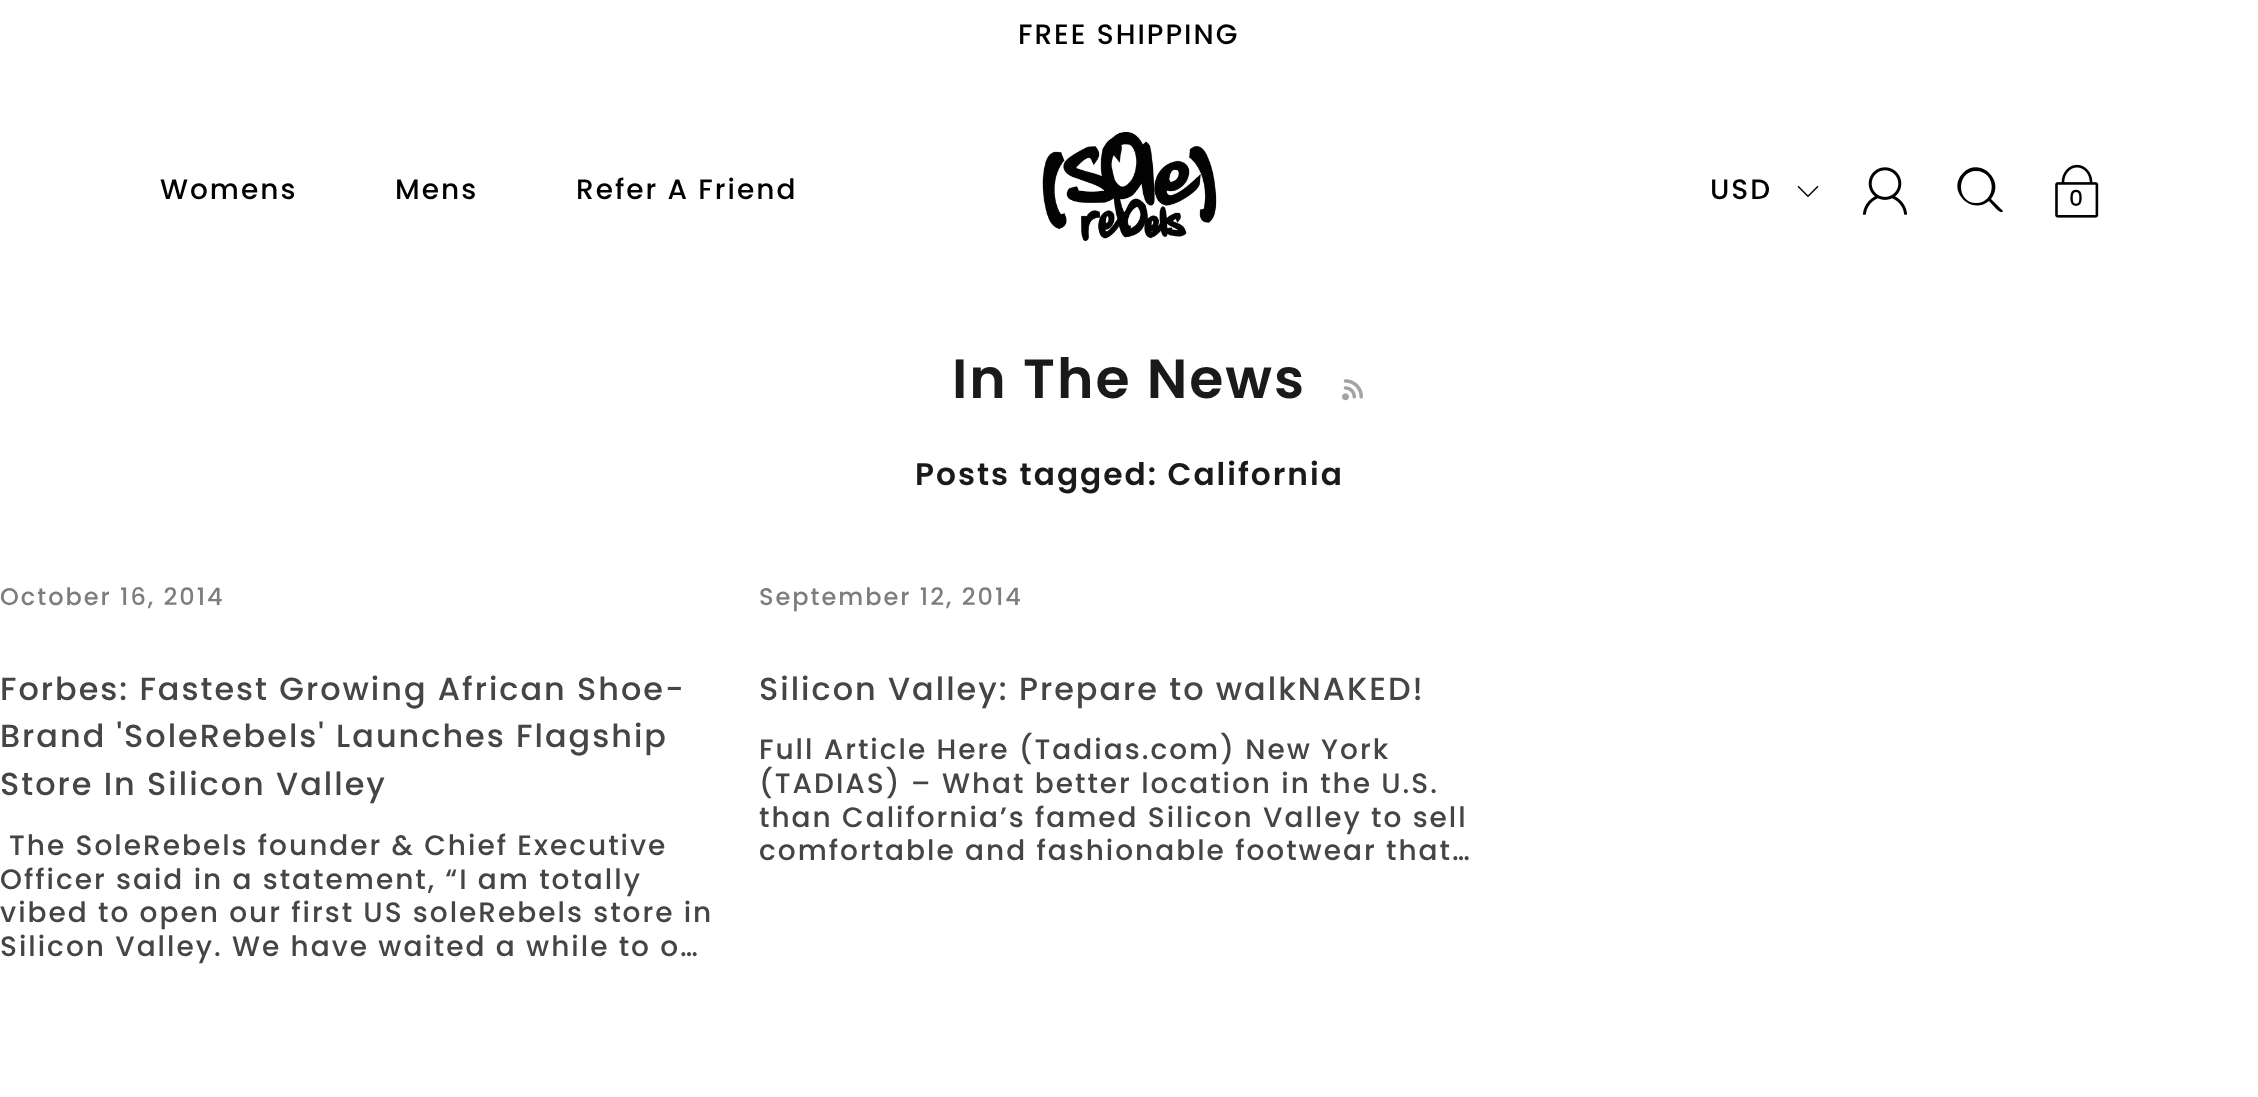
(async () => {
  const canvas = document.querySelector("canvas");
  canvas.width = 2258;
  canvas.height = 1097;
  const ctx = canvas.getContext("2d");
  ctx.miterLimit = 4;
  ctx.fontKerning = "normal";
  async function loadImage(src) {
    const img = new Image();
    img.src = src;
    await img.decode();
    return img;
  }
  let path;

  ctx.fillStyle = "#ffffff";
  ctx.fillRect(0, 0, 2258, 1097);
  ctx.drawImage(await loadImage("img/1.png"), 1042, 132, 175, 109);
  ctx.drawImage(await loadImage("img/2.png"), 1797, 186, 22, 11);
  ctx.drawImage(await loadImage("img/3.png"), 1862, 167, 46, 48);
  ctx.fillStyle = "#000000";
  path = new Path2D("M2002 210L1991 199C2006 181 1980 156 1963 173C1946 190 1971 216 1989 201C1991 203 2000 214 2002 212C2003 212 2003 210 2002 210ZM1976 203C1956 203 1956 171 1976 171C1997 171 1997 203 1976 203Z");
  ctx.fill(path);
  ctx.drawImage(await loadImage("img/4.png"), 2055, 164, 44, 54);
  ctx.drawImage(await loadImage("img/5.png"), 1342, 379, 21, 22);
  ctx.letterSpacing = "2px";
  ctx.font = "500 28px Poppins";
  for (const [text, x, y] of [
    ["FREE SHIPPING", 1018, 44],
    ["Womens", 160, 199],
    ["Mens", 395, 199],
    ["Refer A Friend", 576, 199],
    ["USD", 1710, 199],
  ]) {
    ctx.fillText(text, x, y);
  }
  ctx.letterSpacing = "0px";
  ctx.font = "500 22px Poppins";
  ctx.fillText("0", 2069, 206);
  ctx.letterSpacing = "2px";
  ctx.font = "600 55.25px Poppins";
  ctx.fillStyle = "#1a1a1a";
  ctx.fillText("In The News", 952, 398);
  ctx.font = "600 31.25px Poppins";
  ctx.fillText("Posts tagged: California", 915, 485);
  ctx.font = "500 24px Poppins";
  ctx.fillStyle = "#7e7c7c";
  ctx.fillText("October 16, 2014", 0, 605);
  ctx.font = "500 31.9px Poppins";
  ctx.fillStyle = "#464444";
  for (const [text, x, y] of [
    ["Forbes: Fastest Growing African Shoe-", 0, 700],
    ["Brand 'SoleRebels' Launches Flagship", 0, 747],
    ["Store In Silicon Valley", 0, 795],
  ]) {
    ctx.fillText(text, x, y);
  }
  ctx.font = "500 28px Poppins";
  for (const [text, x, y] of [
    ["The SoleRebels founder & Chief Executive", 9, 855],
    ["Officer said in a statement, “I am totally", 0, 889],
    ["vibed to open our first US soleRebels store in", 0, 922],
    ["Silicon Valley. We have waited a while to o…", 0, 956],
  ]) {
    ctx.fillText(text, x, y);
  }
  ctx.font = "500 24px Poppins";
  ctx.fillStyle = "#7e7c7c";
  ctx.fillText("September 12, 2014", 759, 605);
  ctx.font = "500 31.9px Poppins";
  ctx.fillStyle = "#464444";
  ctx.fillText("Silicon Valley: Prepare to walkNAKED!", 759, 700);
  ctx.font = "500 28px Poppins";
  for (const [text, x, y] of [
    ["Full Article Here (Tadias.com) New York", 759, 759],
    ["(TADIAS) – What better location in the U.S.", 759, 793],
    ["than California’s famed Silicon Valley to sell", 759, 827],
    ["comfortable and fashionable footwear that…", 759, 860],
  ]) {
    ctx.fillText(text, x, y);
  }
})();
